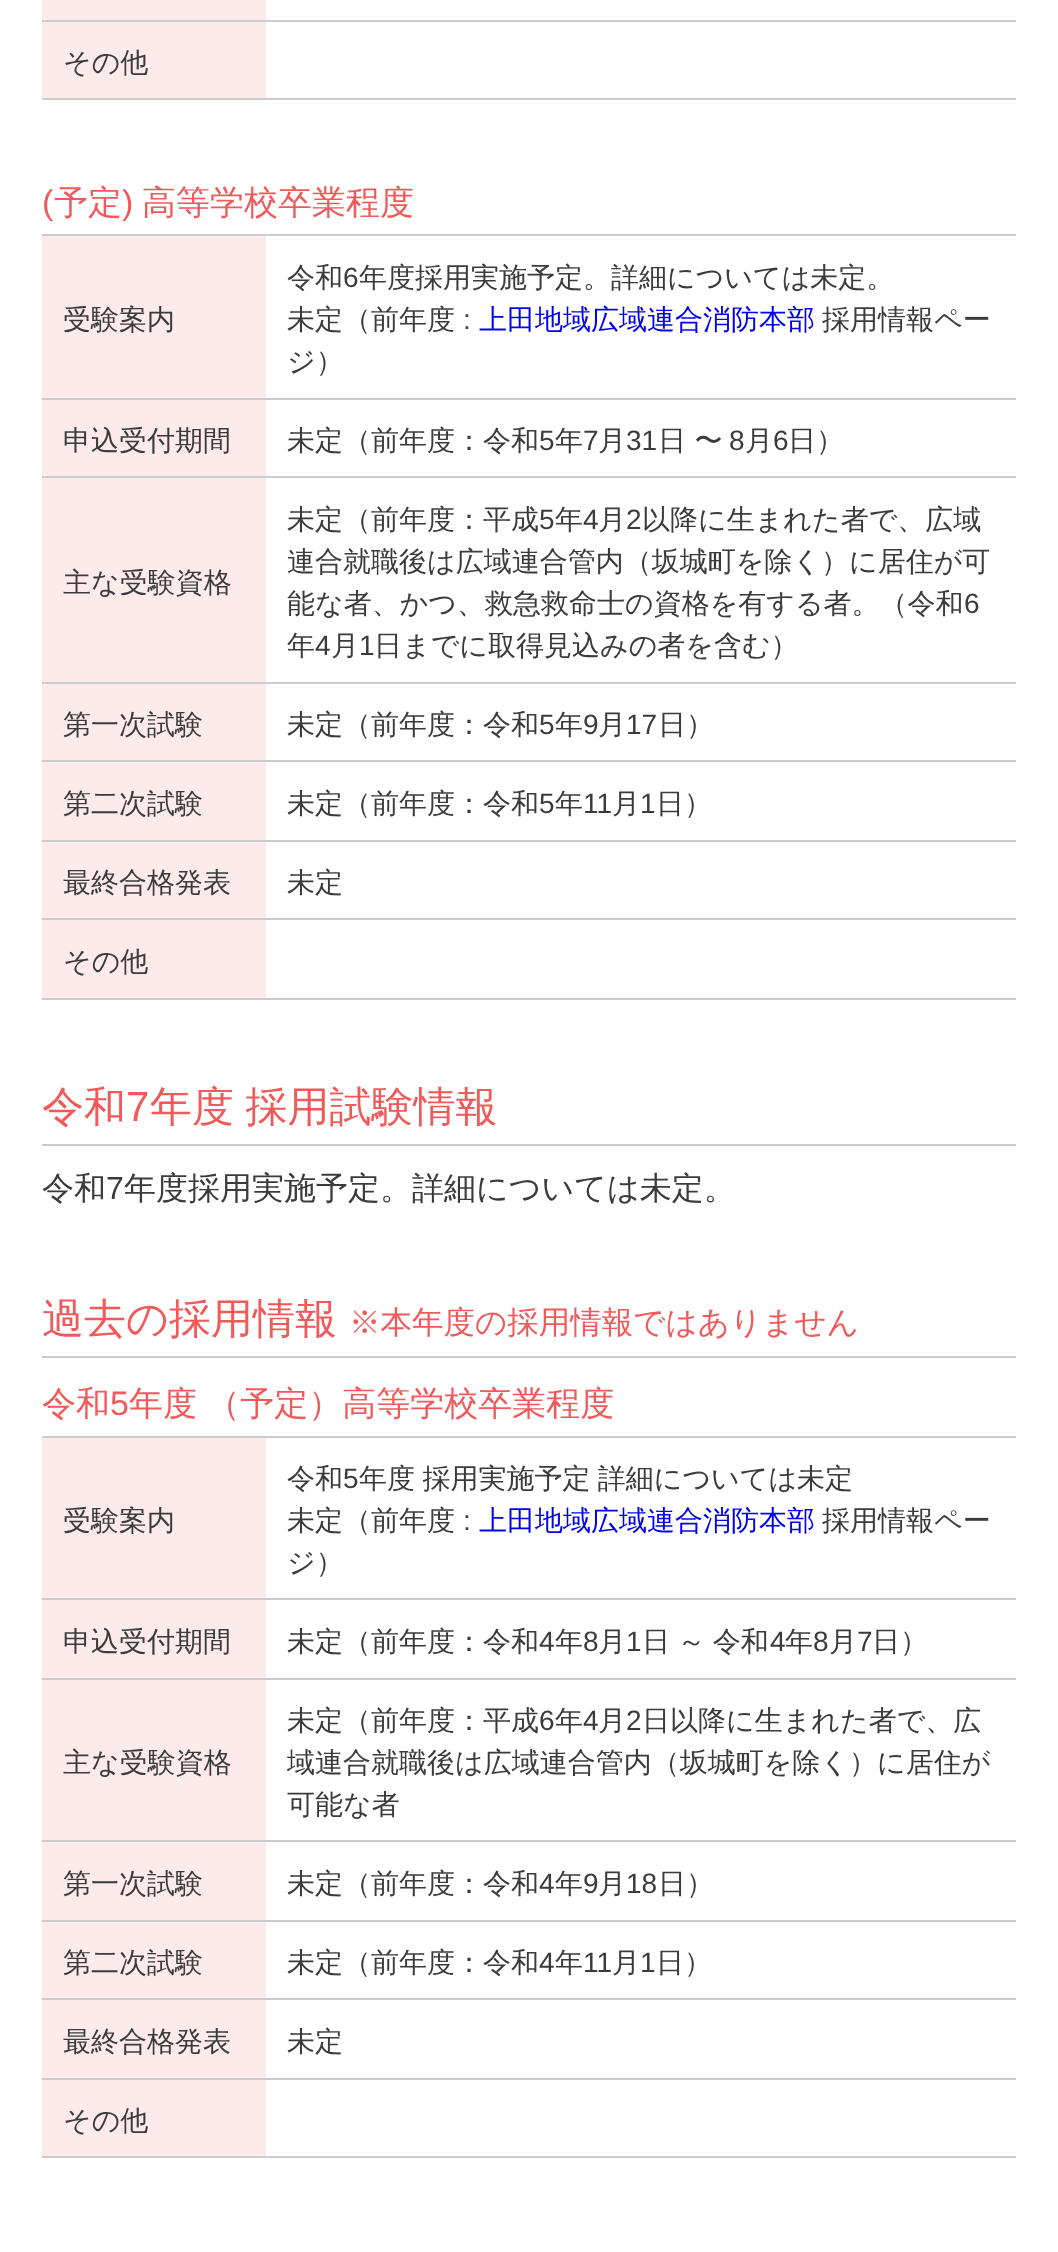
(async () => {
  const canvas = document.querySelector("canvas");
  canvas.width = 1058;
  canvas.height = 2252;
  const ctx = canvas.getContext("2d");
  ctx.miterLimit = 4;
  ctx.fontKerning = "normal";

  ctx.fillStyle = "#ffffff";
  ctx.fillRect(0, 0, 1058, 2252);
  for (const [x, y, w, h, color] of [
    [42, 0, 224, 20, "#fdeaea"],
    [42, 20, 974, 2, "#cccccc"],
    [42, 98, 974, 2, "#cccccc"],
    [42, 22, 224, 76, "#fdeaea"],
    [42, 236, 224, 162, "#fdeaea"],
    [42, 234, 974, 2, "#cccccc"],
    [42, 400, 224, 76, "#fdeaea"],
    [42, 398, 974, 2, "#cccccc"],
    [42, 478, 224, 204, "#fdeaea"],
    [42, 476, 974, 2, "#cccccc"],
    [42, 684, 224, 76, "#fdeaea"],
    [42, 682, 974, 2, "#cccccc"],
    [42, 762, 224, 78, "#fdeaea"],
    [42, 760, 974, 2, "#cccccc"],
    [42, 842, 224, 76, "#fdeaea"],
    [42, 840, 974, 2, "#cccccc"],
    [42, 918, 974, 2, "#cccccc"],
    [42, 998, 974, 2, "#cccccc"],
    [42, 920, 224, 78, "#fdeaea"],
    [42, 1144, 974, 2, "#cccccc"],
    [42, 1356, 974, 2, "#cccccc"],
    [42, 1438, 224, 160, "#fdeaea"],
    [42, 1436, 974, 2, "#cccccc"],
    [42, 1600, 224, 78, "#fdeaea"],
    [42, 1598, 974, 2, "#cccccc"],
    [42, 1680, 224, 160, "#fdeaea"],
    [42, 1678, 974, 2, "#cccccc"],
    [42, 1842, 224, 78, "#fdeaea"],
    [42, 1840, 974, 2, "#cccccc"],
    [42, 1922, 224, 76, "#fdeaea"],
    [42, 1920, 974, 2, "#cccccc"],
    [42, 2000, 224, 78, "#fdeaea"],
    [42, 1998, 974, 2, "#cccccc"],
    [42, 2078, 974, 2, "#cccccc"],
    [42, 2156, 974, 2, "#cccccc"],
    [42, 2080, 224, 76, "#fdeaea"],
  ]) {
    ctx.fillStyle = color;
    ctx.fillRect(x, y, w, h);
  }
  ctx.font = "500 28px WenQuanYi Zen Hei";
  ctx.fillStyle = "#3b3b3b";
  ctx.fillText("その他", 63, 72);
  ctx.font = "34px Liberation Sans";
  ctx.fillStyle = "#f05a5a";
  ctx.fillText("(", 42, 214);
  ctx.font = "500 34px WenQuanYi Zen Hei";
  ctx.fillText("予定", 54, 214);
  ctx.font = "34px Liberation Sans";
  ctx.fillText(")", 122, 214);
  ctx.font = "500 34px WenQuanYi Zen Hei";
  ctx.fillText("高等学校卒業程度", 142, 214);
  ctx.font = "500 28px WenQuanYi Zen Hei";
  ctx.fillStyle = "#3b3b3b";
  ctx.fillText("受験案内", 63, 329);
  ctx.fillText("令和", 287, 287);
  ctx.font = "28px Liberation Sans";
  ctx.fillText("6", 343, 287);
  ctx.font = "500 28px WenQuanYi Zen Hei";
  ctx.fillText("年度採用実施予定。詳細については未定。", 359, 287);
  ctx.fillText("未定（前年度", 287, 329);
  ctx.font = "28px Liberation Sans";
  ctx.fillText(":", 463, 329);
  ctx.font = "500 28px WenQuanYi Zen Hei";
  ctx.fillStyle = "#0000ee";
  ctx.fillText("上田地域広域連合消防本部", 479, 329);
  ctx.fillStyle = "#3b3b3b";
  for (const [text, x, y] of [
    ["採用情報ペー", 822, 329],
    ["ジ）", 287, 371],
    ["申込受付期間", 63, 450],
    ["未定（前年度：令和", 287, 450],
  ]) {
    ctx.fillText(text, x, y);
  }
  ctx.font = "28px Liberation Sans";
  ctx.fillText("5", 539, 450);
  ctx.font = "500 28px WenQuanYi Zen Hei";
  ctx.fillText("年", 555, 450);
  ctx.font = "28px Liberation Sans";
  ctx.fillText("7", 583, 450);
  ctx.font = "500 28px WenQuanYi Zen Hei";
  ctx.fillText("月", 598, 450);
  ctx.font = "28px Liberation Sans";
  ctx.fillText("31", 626, 450);
  ctx.font = "500 28px WenQuanYi Zen Hei";
  ctx.fillText("日 〜", 658, 450);
  ctx.font = "28px Liberation Sans";
  ctx.fillText("8", 729, 450);
  ctx.font = "500 28px WenQuanYi Zen Hei";
  ctx.fillText("月", 745, 450);
  ctx.font = "28px Liberation Sans";
  ctx.fillText("6", 773, 450);
  ctx.font = "500 28px WenQuanYi Zen Hei";
  for (const [text, x, y] of [
    ["日）", 788, 450],
    ["主な受験資格", 63, 592],
    ["未定（前年度：平成", 287, 529],
  ]) {
    ctx.fillText(text, x, y);
  }
  ctx.font = "28px Liberation Sans";
  ctx.fillText("5", 539, 529);
  ctx.font = "500 28px WenQuanYi Zen Hei";
  ctx.fillText("年", 555, 529);
  ctx.font = "28px Liberation Sans";
  ctx.fillText("4", 583, 529);
  ctx.font = "500 28px WenQuanYi Zen Hei";
  ctx.fillText("月", 598, 529);
  ctx.font = "28px Liberation Sans";
  ctx.fillText("2", 626, 529);
  ctx.font = "500 28px WenQuanYi Zen Hei";
  for (const [text, x, y] of [
    ["以降に生まれた者で、広域", 642, 529],
    ["連合就職後は広域連合管内（坂城町を除く）に居住が可", 287, 571],
    ["能な者、かつ、救急救命士の資格を有する者。（令和", 287, 613],
  ]) {
    ctx.fillText(text, x, y);
  }
  ctx.font = "28px Liberation Sans";
  ctx.fillText("6", 964, 613);
  ctx.font = "500 28px WenQuanYi Zen Hei";
  ctx.fillText("年", 287, 655);
  ctx.font = "28px Liberation Sans";
  ctx.fillText("4", 315, 655);
  ctx.font = "500 28px WenQuanYi Zen Hei";
  ctx.fillText("月", 331, 655);
  ctx.font = "28px Liberation Sans";
  ctx.fillText("1", 359, 655);
  ctx.font = "500 28px WenQuanYi Zen Hei";
  for (const [text, x, y] of [
    ["日までに取得見込みの者を含む）", 374, 655],
    ["第一次試験", 63, 734],
    ["未定（前年度：令和", 287, 734],
  ]) {
    ctx.fillText(text, x, y);
  }
  ctx.font = "28px Liberation Sans";
  ctx.fillText("5", 539, 734);
  ctx.font = "500 28px WenQuanYi Zen Hei";
  ctx.fillText("年", 555, 734);
  ctx.font = "28px Liberation Sans";
  ctx.fillText("9", 583, 734);
  ctx.font = "500 28px WenQuanYi Zen Hei";
  ctx.fillText("月", 598, 734);
  ctx.font = "28px Liberation Sans";
  ctx.fillText("17", 626, 734);
  ctx.font = "500 28px WenQuanYi Zen Hei";
  for (const [text, x, y] of [
    ["日）", 658, 734],
    ["第二次試験", 63, 813],
    ["未定（前年度：令和", 287, 813],
  ]) {
    ctx.fillText(text, x, y);
  }
  ctx.font = "28px Liberation Sans";
  ctx.fillText("5", 539, 813);
  ctx.font = "500 28px WenQuanYi Zen Hei";
  ctx.fillText("年", 555, 813);
  ctx.font = "28px Liberation Sans";
  ctx.fillText("11", 583, 813);
  ctx.font = "500 28px WenQuanYi Zen Hei";
  ctx.fillText("月", 612, 813);
  ctx.font = "28px Liberation Sans";
  ctx.fillText("1", 640, 813);
  ctx.font = "500 28px WenQuanYi Zen Hei";
  for (const [text, x, y] of [
    ["日）", 656, 813],
    ["最終合格発表", 63, 892],
    ["未定", 287, 892],
    ["その他", 63, 971],
  ]) {
    ctx.fillText(text, x, y);
  }
  ctx.font = "500 42px WenQuanYi Zen Hei";
  ctx.fillStyle = "#f05a5a";
  ctx.fillText("令和", 42, 1121);
  ctx.font = "42px Liberation Sans";
  ctx.fillText("7", 126, 1121);
  ctx.wordSpacing = "-1px";
  ctx.font = "500 42px WenQuanYi Zen Hei";
  ctx.fillText("年度 採用試験情報", 150, 1121);
  ctx.wordSpacing = "0px";
  ctx.font = "500 32px WenQuanYi Zen Hei";
  ctx.fillStyle = "#3b3b3b";
  ctx.fillText("令和", 42, 1199);
  ctx.font = "32px Liberation Sans";
  ctx.fillText("7", 106, 1199);
  ctx.font = "500 32px WenQuanYi Zen Hei";
  ctx.fillText("年度採用実施予定。詳細については未定。", 124, 1199);
  ctx.font = "500 42px WenQuanYi Zen Hei";
  ctx.fillStyle = "#f05a5a";
  ctx.fillText("過去の採用情報", 42, 1333);
  ctx.font = "500 31.5px WenQuanYi Zen Hei";
  ctx.fillText("※本年度の採用情報ではありません", 349, 1333);
  ctx.font = "500 34px WenQuanYi Zen Hei";
  ctx.fillText("令和", 42, 1415);
  ctx.font = "34px Liberation Sans";
  ctx.fillText("5", 110, 1415);
  ctx.wordSpacing = "-1px";
  ctx.font = "500 34px WenQuanYi Zen Hei";
  ctx.fillText("年度 （予定）高等学校卒業程度", 129, 1415);
  ctx.wordSpacing = "0px";
  ctx.font = "500 28px WenQuanYi Zen Hei";
  ctx.fillStyle = "#3b3b3b";
  ctx.fillText("受験案内", 63, 1530);
  ctx.fillText("令和", 287, 1488);
  ctx.font = "28px Liberation Sans";
  ctx.fillText("5", 343, 1488);
  ctx.wordSpacing = "-1px";
  ctx.font = "500 28px WenQuanYi Zen Hei";
  ctx.fillText("年度 採用実施予定 詳細については未定", 359, 1488);
  ctx.wordSpacing = "0px";
  ctx.fillText("未定（前年度", 287, 1530);
  ctx.font = "28px Liberation Sans";
  ctx.fillText(":", 463, 1530);
  ctx.font = "500 28px WenQuanYi Zen Hei";
  ctx.fillStyle = "#0000ee";
  ctx.fillText("上田地域広域連合消防本部", 479, 1530);
  ctx.fillStyle = "#3b3b3b";
  for (const [text, x, y] of [
    ["採用情報ペー", 822, 1530],
    ["ジ）", 287, 1572],
    ["申込受付期間", 63, 1651],
    ["未定（前年度：令和", 287, 1651],
  ]) {
    ctx.fillText(text, x, y);
  }
  ctx.font = "28px Liberation Sans";
  ctx.fillText("4", 539, 1651);
  ctx.font = "500 28px WenQuanYi Zen Hei";
  ctx.fillText("年", 555, 1651);
  ctx.font = "28px Liberation Sans";
  ctx.fillText("8", 583, 1651);
  ctx.font = "500 28px WenQuanYi Zen Hei";
  ctx.fillText("月", 598, 1651);
  ctx.font = "28px Liberation Sans";
  ctx.fillText("1", 626, 1651);
  ctx.wordSpacing = "-1px";
  ctx.font = "500 28px WenQuanYi Zen Hei";
  ctx.fillText("日 ～ 令和", 642, 1651);
  ctx.wordSpacing = "0px";
  ctx.font = "28px Liberation Sans";
  ctx.fillText("4", 770, 1651);
  ctx.font = "500 28px WenQuanYi Zen Hei";
  ctx.fillText("年", 785, 1651);
  ctx.font = "28px Liberation Sans";
  ctx.fillText("8", 813, 1651);
  ctx.font = "500 28px WenQuanYi Zen Hei";
  ctx.fillText("月", 829, 1651);
  ctx.font = "28px Liberation Sans";
  ctx.fillText("7", 857, 1651);
  ctx.font = "500 28px WenQuanYi Zen Hei";
  for (const [text, x, y] of [
    ["日）", 872, 1651],
    ["主な受験資格", 63, 1772],
    ["未定（前年度：平成", 287, 1730],
  ]) {
    ctx.fillText(text, x, y);
  }
  ctx.font = "28px Liberation Sans";
  ctx.fillText("6", 539, 1730);
  ctx.font = "500 28px WenQuanYi Zen Hei";
  ctx.fillText("年", 555, 1730);
  ctx.font = "28px Liberation Sans";
  ctx.fillText("4", 583, 1730);
  ctx.font = "500 28px WenQuanYi Zen Hei";
  ctx.fillText("月", 598, 1730);
  ctx.font = "28px Liberation Sans";
  ctx.fillText("2", 626, 1730);
  ctx.font = "500 28px WenQuanYi Zen Hei";
  for (const [text, x, y] of [
    ["日以降に生まれた者で、広", 642, 1730],
    ["域連合就職後は広域連合管内（坂城町を除く）に居住が", 287, 1772],
    ["可能な者", 287, 1814],
    ["第一次試験", 63, 1893],
    ["未定（前年度：令和", 287, 1893],
  ]) {
    ctx.fillText(text, x, y);
  }
  ctx.font = "28px Liberation Sans";
  ctx.fillText("4", 539, 1893);
  ctx.font = "500 28px WenQuanYi Zen Hei";
  ctx.fillText("年", 555, 1893);
  ctx.font = "28px Liberation Sans";
  ctx.fillText("9", 583, 1893);
  ctx.font = "500 28px WenQuanYi Zen Hei";
  ctx.fillText("月", 598, 1893);
  ctx.font = "28px Liberation Sans";
  ctx.fillText("18", 626, 1893);
  ctx.font = "500 28px WenQuanYi Zen Hei";
  for (const [text, x, y] of [
    ["日）", 658, 1893],
    ["第二次試験", 63, 1972],
    ["未定（前年度：令和", 287, 1972],
  ]) {
    ctx.fillText(text, x, y);
  }
  ctx.font = "28px Liberation Sans";
  ctx.fillText("4", 539, 1972);
  ctx.font = "500 28px WenQuanYi Zen Hei";
  ctx.fillText("年", 555, 1972);
  ctx.font = "28px Liberation Sans";
  ctx.fillText("11", 583, 1972);
  ctx.font = "500 28px WenQuanYi Zen Hei";
  ctx.fillText("月", 612, 1972);
  ctx.font = "28px Liberation Sans";
  ctx.fillText("1", 640, 1972);
  ctx.font = "500 28px WenQuanYi Zen Hei";
  for (const [text, x, y] of [
    ["日）", 656, 1972],
    ["最終合格発表", 63, 2051],
    ["未定", 287, 2051],
    ["その他", 63, 2130],
  ]) {
    ctx.fillText(text, x, y);
  }
})();
